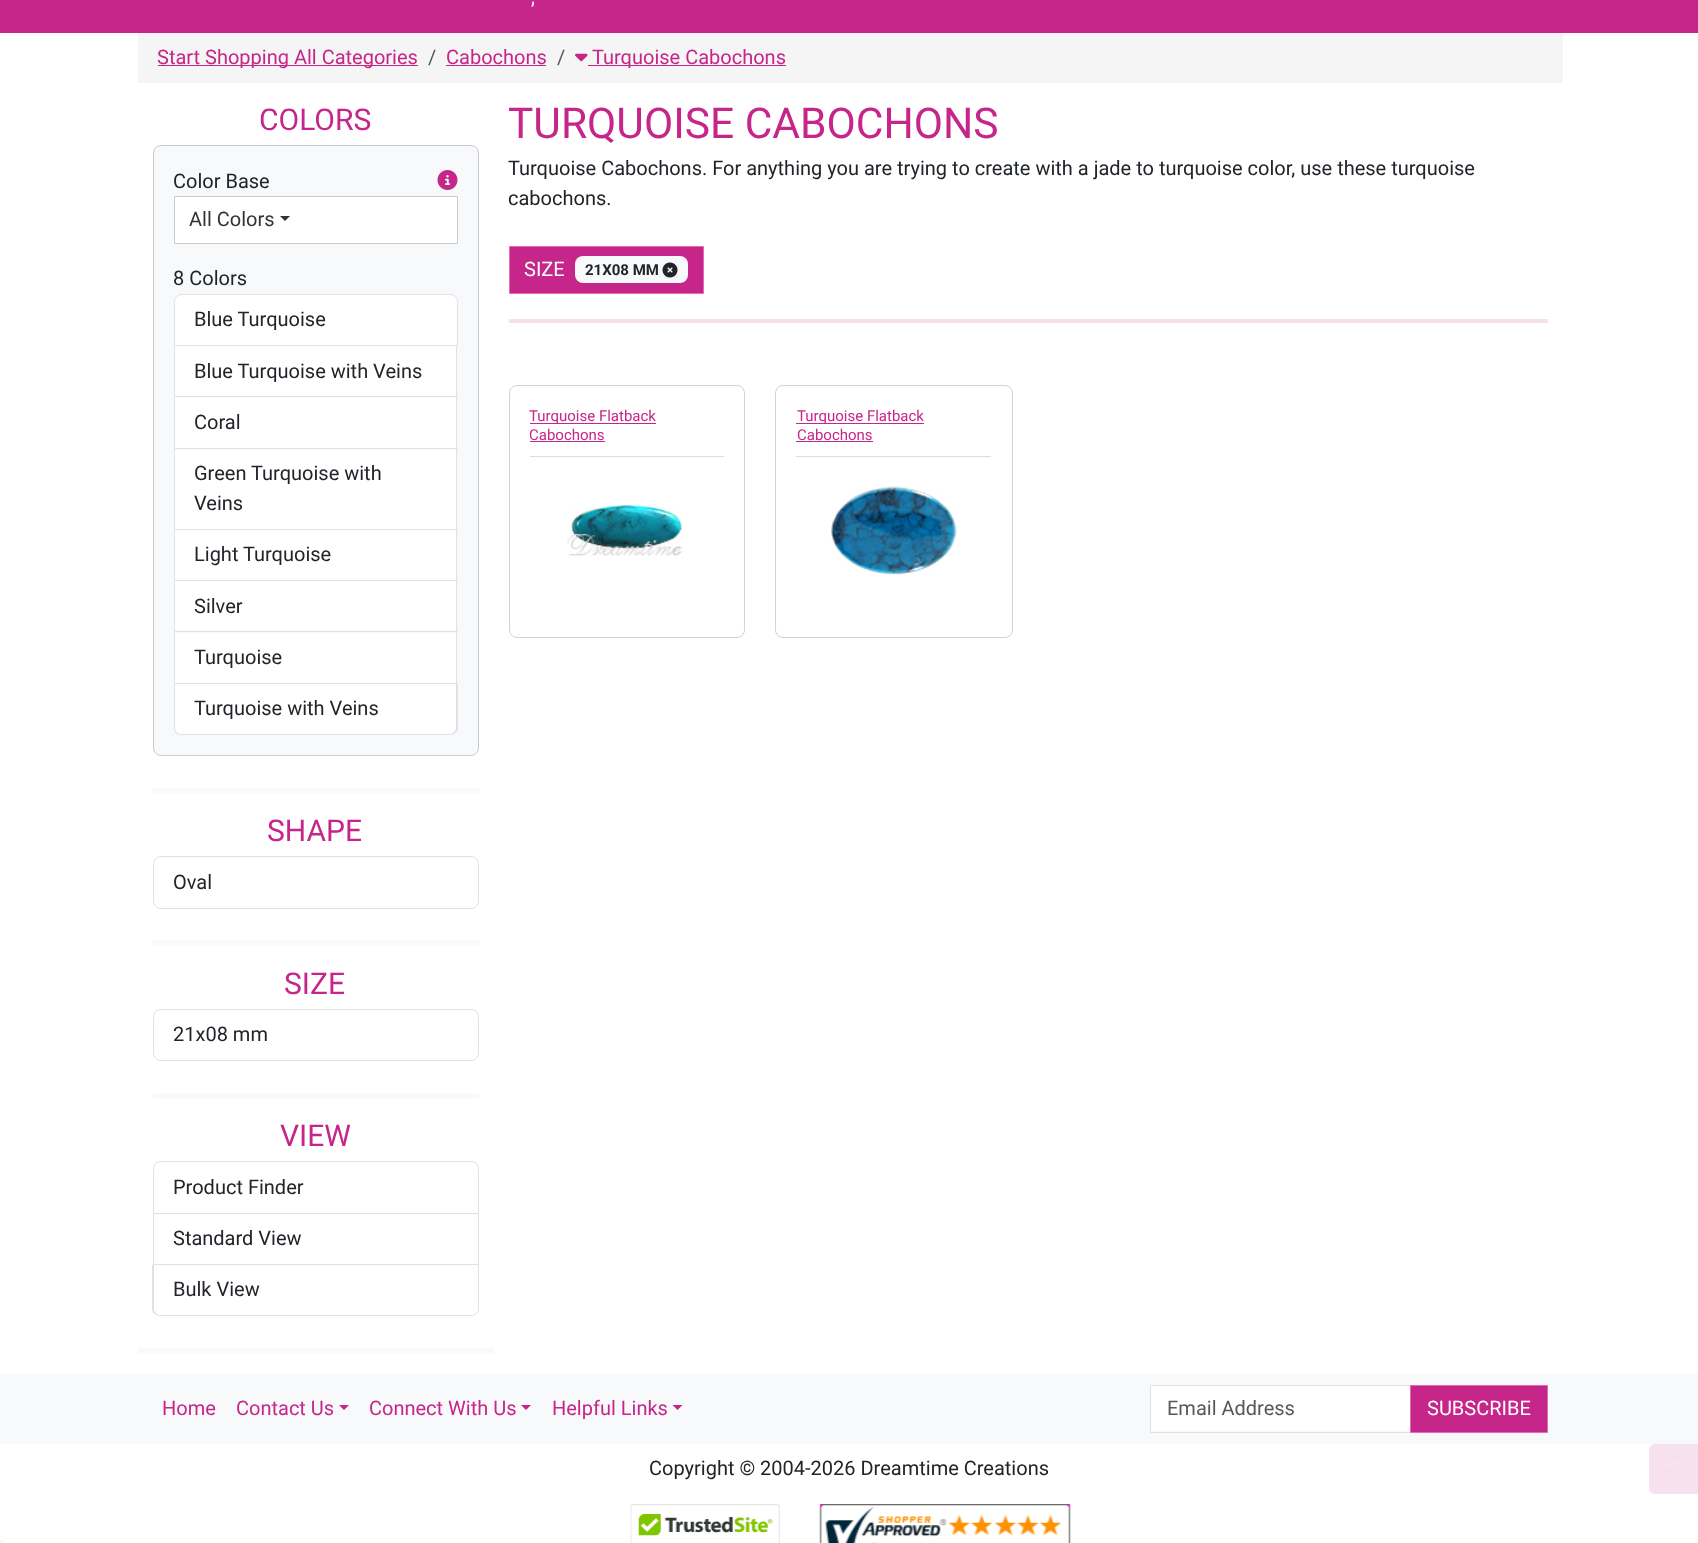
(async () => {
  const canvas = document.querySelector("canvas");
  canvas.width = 1698;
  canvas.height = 1543;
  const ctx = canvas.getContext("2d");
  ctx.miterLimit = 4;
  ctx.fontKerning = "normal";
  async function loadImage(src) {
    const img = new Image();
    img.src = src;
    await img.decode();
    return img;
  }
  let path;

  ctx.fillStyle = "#ffffff";
  ctx.fillRect(0, 0, 1698, 1543);
  for (const [x, y, w, h, color] of [
    [0, 0, 1698, 33, "#c62589"],
    [138, 33, 1425, 50, "#f5f5f5"],
    [158, 65, 260, 1, "#c62589"],
    [446, 65, 100, 1, "#c62589"],
  ]) {
    ctx.fillStyle = color;
    ctx.fillRect(x, y, w, h);
  }
  ctx.drawImage(await loadImage("img/1.png"), 575, 53, 13, 9);
  for (const [x, y, w, h, color] of [
    [588, 65, 198, 1, "#c62589"],
    [138, 1348, 356, 6, "#fafafa"],
    [153, 788, 326, 6, "#fafafa"],
  ]) {
    ctx.fillStyle = color;
    ctx.fillRect(x, y, w, h);
  }
  ctx.fillStyle = "#f8f9fa";
  ctx.beginPath();
  ctx.roundRect(153, 145, 326, 611, 8);
  ctx.fill();
  ctx.beginPath();
  ctx.roundRect(153.5, 145.5, 325, 610, 7.5);
  ctx.strokeStyle = "rgba(0, 0, 0, 0.18)";
  ctx.stroke();
  ctx.drawImage(await loadImage("img/2.png"), 437, 170, 21, 20);
  ctx.fillStyle = "#ffffff";
  ctx.beginPath();
  ctx.rect(174.5, 196.5, 283, 47);
  ctx.fill();
  ctx.strokeStyle = "#cccccc";
  ctx.stroke();
  ctx.fillStyle = "#333333";
  path = new Path2D("M280 216H290L285 221Z");
  ctx.fill(path);
  ctx.fillStyle = "#ffffff";
  ctx.beginPath();
  ctx.roundRect(174.5, 294.5, 283, 51, [7.5, 7.5, 0, 0]);
  ctx.fill();
  ctx.strokeStyle = "#dee2e6";
  ctx.stroke();
  for (const [x, y, w, h, color] of [
    [175, 346, 281, 50, "#ffffff"],
    [456, 346, 1, 338, "#dee2e6"],
    [174, 396, 284, 1, "#dee2e6"],
    [174, 346, 1, 52, "#dee2e6"],
    [175, 398, 281, 50, "#ffffff"],
    [174, 448, 284, 1, "#dee2e6"],
    [174, 398, 1, 51, "#dee2e6"],
    [175, 449, 281, 80, "#ffffff"],
    [174, 529, 284, 1, "#dee2e6"],
    [174, 449, 1, 81, "#dee2e6"],
    [175, 530, 281, 50, "#ffffff"],
    [174, 580, 284, 1, "#dee2e6"],
    [174, 530, 1, 51, "#dee2e6"],
    [175, 581, 281, 50, "#ffffff"],
    [174, 631, 284, 1, "#dee2e6"],
    [174, 581, 1, 52, "#dee2e6"],
    [175, 633, 281, 50, "#ffffff"],
    [174, 683, 284, 1, "#dee2e6"],
    [174, 633, 1, 51, "#dee2e6"],
  ]) {
    ctx.fillStyle = color;
    ctx.fillRect(x, y, w, h);
  }
  ctx.fillStyle = "#ffffff";
  ctx.beginPath();
  ctx.roundRect(175, 684, 281, 50, [0, 0, 6, 6]);
  ctx.fill();
  ctx.fillStyle = "#dee2e6";
  path = new Path2D("M174 684H458V728C458 732 454 735 450 735H181C177 735 174 732 174 728ZM175 684H456V728C456 731 453 734 450 734H181C178 734 175 731 175 728Z");
  ctx.fill(path, "evenodd");
  ctx.fillStyle = "#fafafa";
  ctx.fillRect(153, 940, 326, 6);
  ctx.beginPath();
  ctx.roundRect(153.5, 856.5, 325, 52, 7.5);
  ctx.stroke();
  ctx.fillRect(153, 1093, 326, 6);
  ctx.beginPath();
  ctx.roundRect(153.5, 1009.5, 325, 51, 7.5);
  ctx.stroke();
  ctx.beginPath();
  ctx.roundRect(153.5, 1161.5, 325, 52, [7.5, 7.5, 0, 0]);
  ctx.stroke();
  for (const [x, y, w, h, color] of [
    [478, 1214, 1, 51, "#dee2e6"],
    [153, 1264, 326, 1, "#dee2e6"],
    [153, 1214, 1, 51, "#dee2e6"],
  ]) {
    ctx.fillStyle = color;
    ctx.fillRect(x, y, w, h);
  }
  path = new Path2D("M152 1265H479V1309C479 1313 475 1316 471 1316H160C156 1316 152 1313 152 1309ZM154 1265H478V1309C478 1312 475 1315 471 1315H160C157 1315 154 1312 154 1309Z");
  ctx.fill(path, "evenodd");
  ctx.fillStyle = "#c62589";
  ctx.beginPath();
  ctx.rect(509.5, 246.5, 194, 47);
  ctx.fill();
  ctx.strokeStyle = "#e36ab5";
  ctx.stroke();
  ctx.fillStyle = "#f8f9fa";
  ctx.beginPath();
  ctx.roundRect(575, 256, 113, 27, 8);
  ctx.fill();
  ctx.drawImage(await loadImage("img/3.png"), 662, 262, 16, 16);
  ctx.fillStyle = "#f9deee";
  ctx.fillRect(509, 319, 1039, 4);
  ctx.beginPath();
  ctx.roundRect(509.5, 385.5, 235, 252, 7.5);
  ctx.strokeStyle = "#d2d2d2";
  ctx.stroke();
  for (const [x, y, w, h, color] of [
    [530, 456, 194, 1, "#dddddd"],
    [530, 423, 126, 1, "#c62589"],
    [530, 441, 75, 1, "#c62589"],
  ]) {
    ctx.fillStyle = color;
    ctx.fillRect(x, y, w, h);
  }
  ctx.drawImage(await loadImage("img/4.png"), 567, 505, 115, 51);
  ctx.beginPath();
  ctx.roundRect(775.5, 385.5, 237, 252, 7.5);
  ctx.stroke();
  for (const [x, y, w, h, color] of [
    [796, 456, 195, 1, "#dddddd"],
    [796, 423, 128, 1, "#c62589"],
    [796, 441, 77, 1, "#c62589"],
  ]) {
    ctx.fillStyle = color;
    ctx.fillRect(x, y, w, h);
  }
  ctx.drawImage(await loadImage("img/5.png"), 831, 486, 126, 89);
  ctx.fillStyle = "#f8f9fa";
  ctx.fillRect(0, 1374, 1698, 70);
  ctx.fillStyle = "#c62589";
  path = new Path2D("M339 1405H349L344 1410Z");
  ctx.fill(path);
  path = new Path2D("M521 1405H531L526 1410Z");
  ctx.fill(path);
  path = new Path2D("M672.5 1405H682.5L677.5 1410Z");
  ctx.fill(path);
  ctx.fillStyle = "#ffffff";
  ctx.fillRect(1151, 1386, 259, 45);
  ctx.strokeStyle = "#dee2e6";
  ctx.strokeRect(1150.5, 1385.5, 260, 47);
  ctx.fillStyle = "#c62589";
  ctx.beginPath();
  ctx.rect(1410.5, 1385.5, 137, 47);
  ctx.fill();
  ctx.strokeStyle = "#e36ab5";
  ctx.stroke();
  ctx.drawImage(await loadImage("img/6.png"), 630, 1504, 150, 39);
  ctx.drawImage(await loadImage("img/7.png"), 819, 1504, 252, 39);
  ctx.fillStyle = "#f7e1ef";
  path = new Path2D("M1655 1444H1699V1494H1655C1651.5 1494 1649 1491.5 1649 1488V1450C1649 1446.5 1651.5 1444 1655 1444Z");
  ctx.fill(path);
  ctx.drawImage(await loadImage("img/8.png"), 1666, 1461, 16, 8);
  ctx.fillStyle = "#f5f5f5";
  ctx.fillRect(0, 1541, 3, 2);
  ctx.font = "20px Roboto";
  ctx.fillStyle = "#ffffff";
  ctx.fillText(",", 531, 4);
  ctx.fillStyle = "#c62589";
  ctx.fillText("Start Shopping All Categories", 157, 64);
  ctx.fillStyle = "#56595c";
  ctx.fillText("/", 428, 64);
  ctx.fillStyle = "#c62589";
  ctx.fillText("Cabochons", 446, 64);
  ctx.fillStyle = "#56595c";
  ctx.fillText("/", 557, 64);
  ctx.fillStyle = "#c62589";
  ctx.fillText("Turquoise Cabochons", 592, 64);
  ctx.font = "30px Roboto";
  ctx.fillText("COLORS", 259, 130);
  ctx.font = "20px Roboto";
  ctx.fillStyle = "#212529";
  ctx.fillText("Color Base", 173, 188);
  ctx.fillStyle = "#333333";
  ctx.fillText("All Colors", 189, 226);
  ctx.fillStyle = "#212529";
  for (const [text, x, y] of [
    ["8 Colors", 173, 285],
    ["Blue Turquoise", 194, 326],
    ["Blue Turquoise with Veins", 194, 378],
    ["Coral", 194, 429],
    ["Green Turquoise with", 194, 480],
    ["Veins", 194, 510],
    ["Light Turquoise", 194, 561],
    ["Silver", 194, 613],
    ["Turquoise", 194, 664],
    ["Turquoise with Veins", 194, 715],
  ]) {
    ctx.fillText(text, x, y);
  }
  ctx.font = "30px Roboto";
  ctx.fillStyle = "#c62589";
  ctx.fillText("SHAPE", 267, 841);
  ctx.font = "20px Roboto";
  ctx.fillStyle = "#212529";
  ctx.fillText("Oval", 173, 889);
  ctx.font = "30px Roboto";
  ctx.fillStyle = "#c62589";
  ctx.fillText("SIZE", 284, 994);
  ctx.font = "20px Roboto";
  ctx.fillStyle = "#212529";
  ctx.fillText("21x08 mm", 173, 1041);
  ctx.font = "30px Roboto";
  ctx.fillStyle = "#c62589";
  ctx.fillText("VIEW", 280, 1146);
  ctx.font = "20px Roboto";
  ctx.fillStyle = "#212529";
  for (const [text, x, y] of [
    ["Product Finder", 173, 1194],
    ["Standard View", 173, 1245],
    ["Bulk View", 173, 1296],
  ]) {
    ctx.fillText(text, x, y);
  }
  ctx.font = "42.5px Roboto";
  ctx.fillStyle = "#c62589";
  ctx.fillText("TURQUOISE CABOCHONS", 508, 138);
  ctx.font = "20px Roboto";
  ctx.fillStyle = "#212529";
  ctx.fillText("Turquoise Cabochons. For anything you are trying to create with a jade to turquoise color, use these turquoise", 508, 175);
  ctx.fillText("cabochons.", 508, 205);
  ctx.fillStyle = "#ffffff";
  ctx.fillText("SIZE", 524, 276);
  ctx.font = "bold 15px Roboto";
  ctx.fillStyle = "#212529";
  ctx.fillText("21X08 MM", 585, 275);
  ctx.font = "15px Roboto";
  ctx.fillStyle = "#c62589";
  for (const [text, x, y] of [
    ["Turquoise Flatback", 529, 421],
    ["Cabochons", 529, 440],
    ["Turquoise Flatback", 797, 421],
    ["Cabochons", 797, 440],
  ]) {
    ctx.fillText(text, x, y);
  }
  ctx.font = "20px Roboto";
  for (const [text, x, y] of [
    ["Home", 162, 1415],
    ["Contact Us", 236, 1415],
    ["Connect With Us", 369, 1415],
    ["Helpful Links", 552, 1415],
  ]) {
    ctx.fillText(text, x, y);
  }
  ctx.fillStyle = "#56595c";
  ctx.fillText("Email Address", 1167, 1415);
  ctx.fillStyle = "#ffffff";
  ctx.fillText("SUBSCRIBE", 1427, 1415);
  ctx.fillStyle = "#212529";
  ctx.fillText("Copyright © 2004-2026 Dreamtime Creations", 649, 1475);
})();
